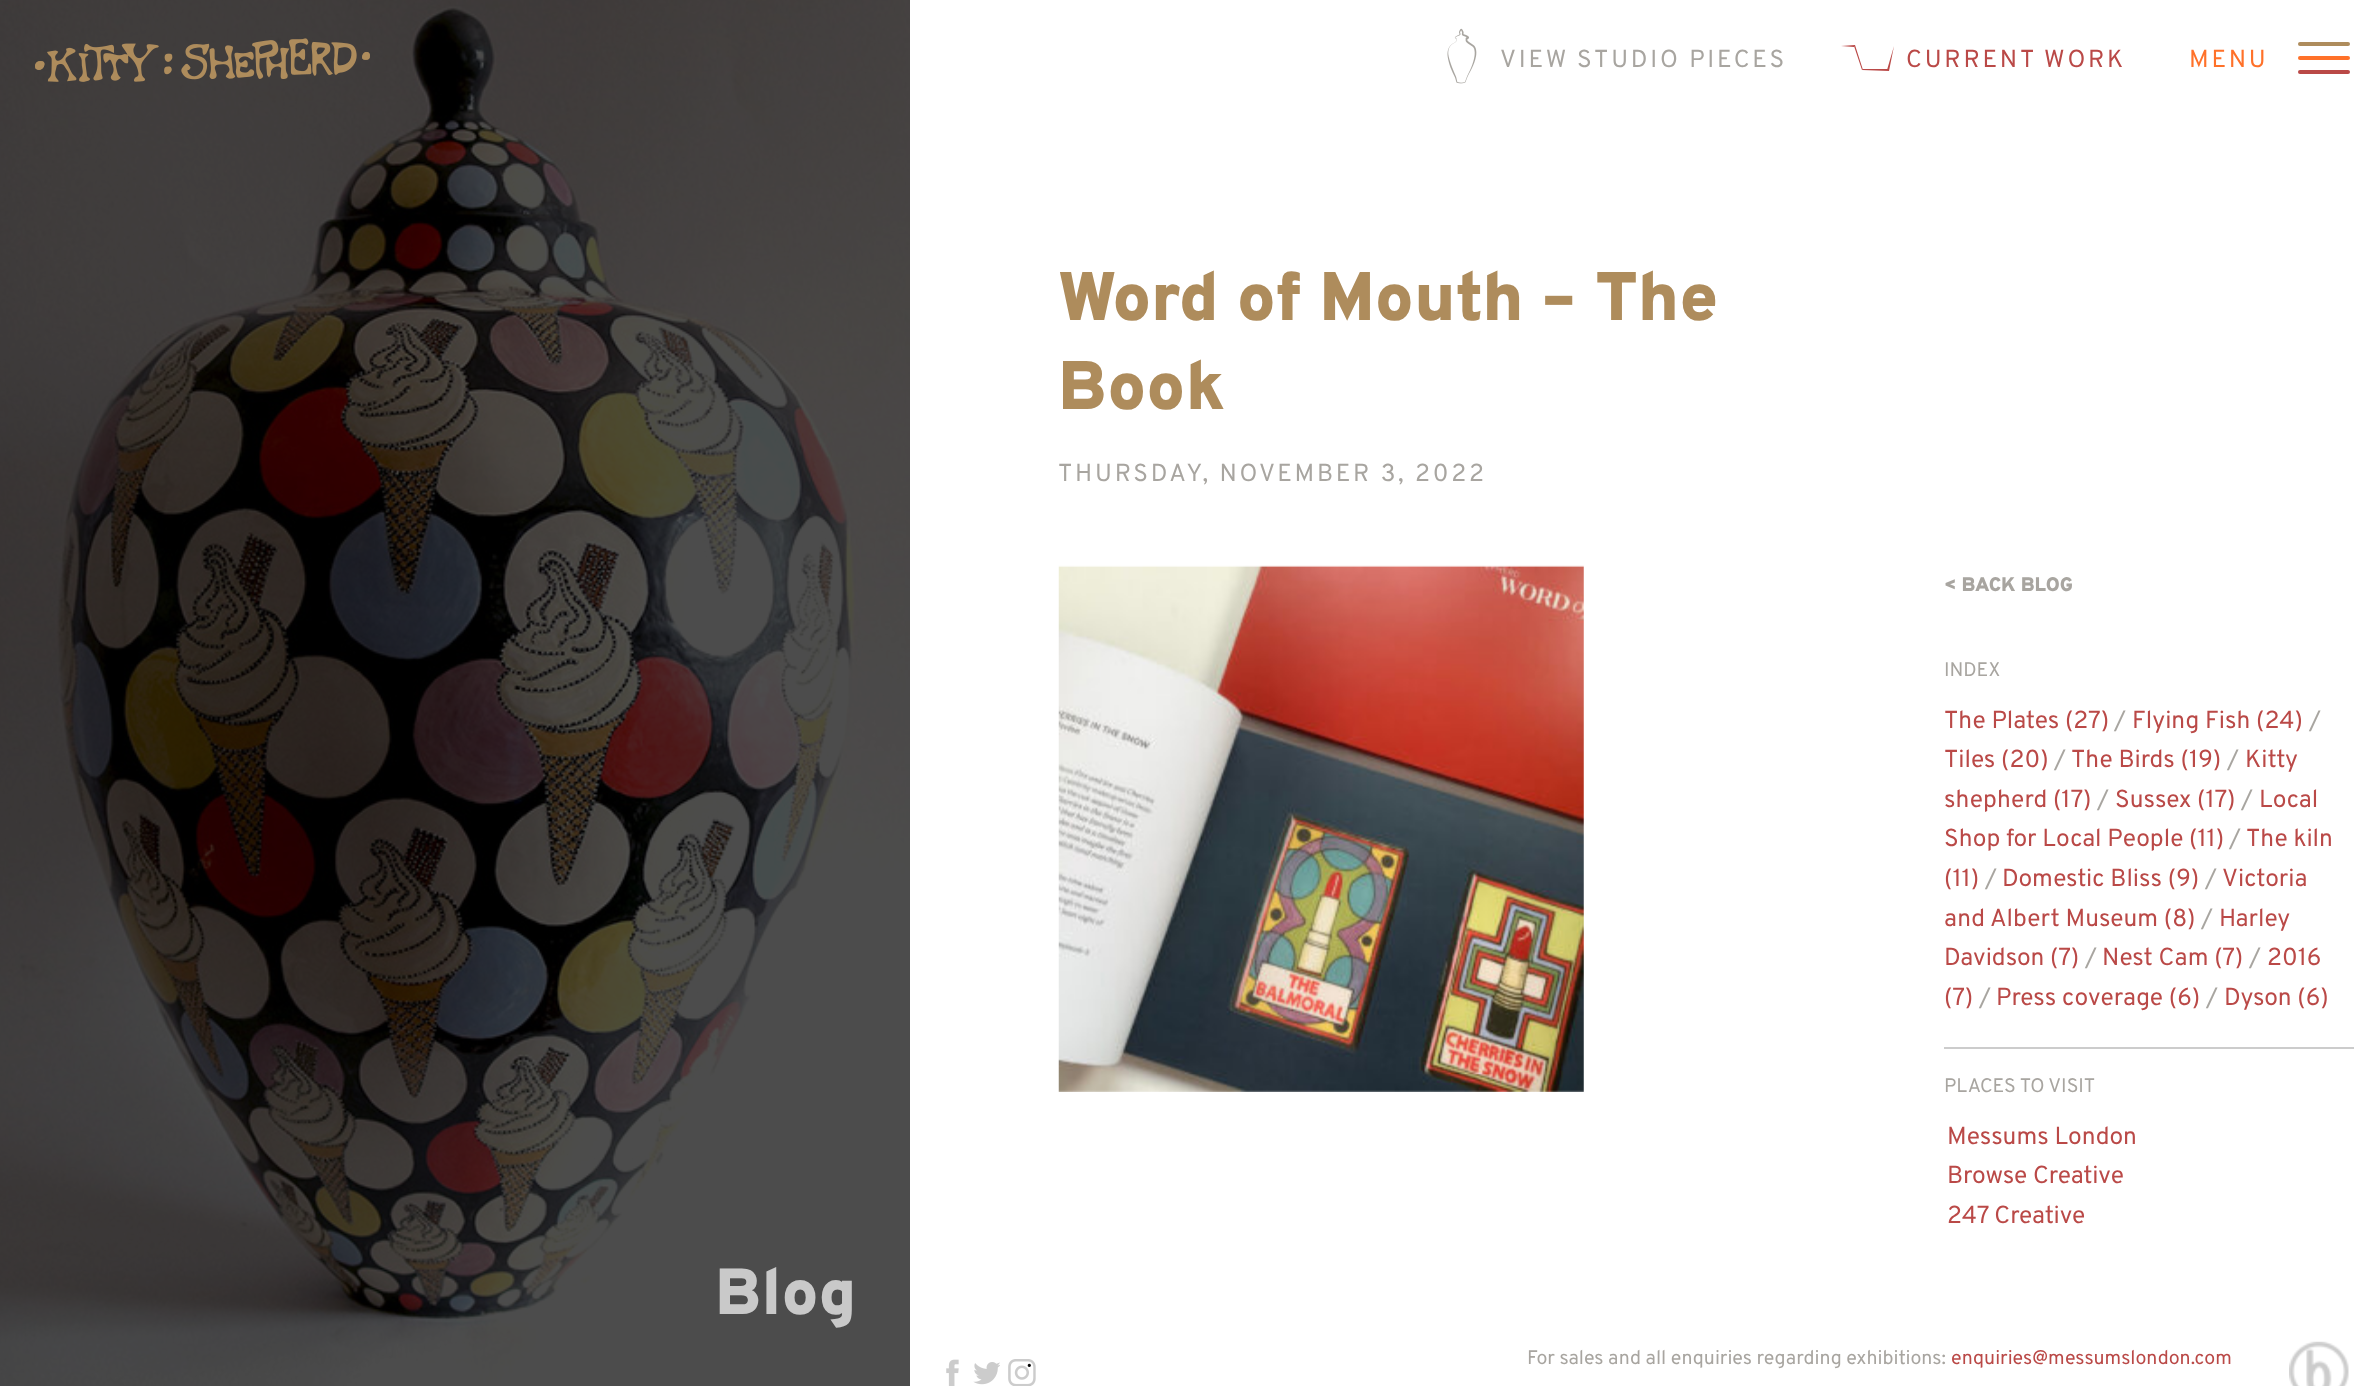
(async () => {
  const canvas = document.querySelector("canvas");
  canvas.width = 2379;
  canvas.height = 1386;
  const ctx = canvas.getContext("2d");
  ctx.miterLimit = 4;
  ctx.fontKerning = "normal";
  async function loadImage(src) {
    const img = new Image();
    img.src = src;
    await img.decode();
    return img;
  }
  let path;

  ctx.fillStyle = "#ffffff";
  ctx.fillRect(0, 0, 2379, 1386);
  ctx.drawImage(await loadImage("img/4.png"), 0, 0, 910, 1386);
  ctx.drawImage(await loadImage("img/1.png"), 35, 38, 335, 44);
  ctx.drawImage(await loadImage("img/2.png"), 1447, 28, 30, 56);
  ctx.fillStyle = "#ba4947";
  path = new Path2D("M1841 46L1855 45L1863 70V69H1888L1887 70L1894 46L1889 71L1862 70L1854 46V47Z");
  ctx.fill(path);
  ctx.fillStyle = "#ae8c5c";
  ctx.beginPath();
  ctx.roundRect(2298, 42, 52, 4, 2);
  ctx.fill();
  ctx.fillStyle = "#ff7129";
  ctx.beginPath();
  ctx.roundRect(2298, 56, 52, 4, 2);
  ctx.fill();
  ctx.fillStyle = "#ba4947";
  ctx.beginPath();
  ctx.roundRect(2298, 70, 52, 4, 2);
  ctx.fill();
  ctx.drawImage(await loadImage("img/3.png"), 1058, 565, 526, 527);
  ctx.fillStyle = "#cccccc";
  ctx.fillRect(1944, 1047, 410, 2);
  ctx.drawImage(await loadImage("img/5.png"), 946, 1359, 13, 27);
  ctx.drawImage(await loadImage("img/6.png"), 973, 1362, 27, 23);
  ctx.drawImage(await loadImage("img/7.png"), 1008, 1359, 28, 27);
  ctx.drawImage(await loadImage("img/8.png"), 2289, 1341, 60, 45);
  ctx.letterSpacing = "2.8px";
  ctx.font = "24.5px Overpass";
  ctx.fillStyle = "#a8a5a0";
  ctx.fillText("VIEW STUDIO PIECES", 1500, 67);
  ctx.fillStyle = "#ba4947";
  ctx.fillText("CURRENT WORK", 1906, 67);
  ctx.fillStyle = "#ff7129";
  ctx.fillText("MENU", 2189, 67);
  ctx.letterSpacing = "0px";
  ctx.font = "900 68.5px Overpass";
  ctx.fillStyle = "#ae8c5c";
  ctx.fillText("Word of Mouth – The", 1058, 320);
  ctx.fillText("Book", 1058, 409);
  ctx.letterSpacing = "2.8px";
  ctx.font = "24.5px Overpass";
  ctx.fillStyle = "#a8a5a0";
  ctx.fillText("THURSDAY, NOVEMBER 3, 2022", 1058, 481);
  ctx.letterSpacing = "0px";
  ctx.font = "900 19.6px Overpass";
  ctx.fillText("< BACK BLOG", 1944, 591);
  ctx.font = "19.6px Overpass";
  ctx.fillText("INDEX", 1944, 676);
  ctx.font = "24.5px Overpass";
  ctx.fillStyle = "#ba4947";
  ctx.fillText("The Plates (27)", 1944, 728);
  ctx.fillStyle = "#a8a5a0";
  ctx.fillText("/", 2114, 728);
  ctx.fillStyle = "#ba4947";
  ctx.fillText("Flying Fish (24)", 2132, 728);
  ctx.fillStyle = "#a8a5a0";
  ctx.fillText("/", 2309, 728);
  ctx.fillStyle = "#ba4947";
  ctx.fillText("Tiles (20)", 1944, 767);
  ctx.fillStyle = "#a8a5a0";
  ctx.fillText("/", 2054, 767);
  ctx.fillStyle = "#ba4947";
  ctx.fillText("The Birds (19)", 2071, 767);
  ctx.fillStyle = "#a8a5a0";
  ctx.fillText("/", 2227, 767);
  ctx.fillStyle = "#ba4947";
  ctx.fillText("Kitty", 2245, 767);
  ctx.fillText("shepherd (17)", 1944, 807);
  ctx.fillStyle = "#a8a5a0";
  ctx.fillText("/", 2097, 807);
  ctx.fillStyle = "#ba4947";
  ctx.fillText("Sussex (17)", 2115, 807);
  ctx.fillStyle = "#a8a5a0";
  ctx.fillText("/", 2241, 807);
  ctx.fillStyle = "#ba4947";
  ctx.fillText("Local", 2259, 807);
  ctx.fillText("Shop for Local People (11)", 1944, 846);
  ctx.fillStyle = "#a8a5a0";
  ctx.fillText("/", 2229, 846);
  ctx.fillStyle = "#ba4947";
  ctx.fillText("The kiln", 2246, 846);
  ctx.fillText("(11)", 1944, 886);
  ctx.fillStyle = "#a8a5a0";
  ctx.fillText("/", 1985, 886);
  ctx.fillStyle = "#ba4947";
  ctx.fillText("Domestic Bliss (9)", 2002, 886);
  ctx.fillStyle = "#a8a5a0";
  ctx.fillText("/", 2205, 886);
  ctx.fillStyle = "#ba4947";
  ctx.fillText("Victoria", 2222, 886);
  ctx.fillText("and Albert Museum (8)", 1944, 926);
  ctx.fillStyle = "#a8a5a0";
  ctx.fillText("/", 2201, 926);
  ctx.fillStyle = "#ba4947";
  ctx.fillText("Harley", 2219, 926);
  ctx.fillText("Davidson (7)", 1944, 965);
  ctx.fillStyle = "#a8a5a0";
  ctx.fillText("/", 2085, 965);
  ctx.fillStyle = "#ba4947";
  ctx.fillText("Nest Cam (7)", 2102, 965);
  ctx.fillStyle = "#a8a5a0";
  ctx.fillText("/", 2249, 965);
  ctx.fillStyle = "#ba4947";
  ctx.fillText("2016", 2267, 965);
  ctx.fillText("(7)", 1944, 1005);
  ctx.fillStyle = "#a8a5a0";
  ctx.fillText("/", 1979, 1005);
  ctx.fillStyle = "#ba4947";
  ctx.fillText("Press coverage (6)", 1996, 1005);
  ctx.fillStyle = "#a8a5a0";
  ctx.fillText("/", 2206, 1005);
  ctx.fillStyle = "#ba4947";
  ctx.fillText("Dyson (6)", 2224, 1005);
  ctx.font = "19.6px Overpass";
  ctx.fillStyle = "#a8a5a0";
  ctx.fillText("PLACES TO VISIT", 1944, 1092);
  ctx.font = "24.5px Overpass";
  ctx.fillStyle = "#ba4947";
  for (const [text, x, y] of [
    ["Messums London", 1947, 1144],
    ["Browse Creative", 1947, 1183],
    ["247 Creative", 1947, 1223],
  ]) {
    ctx.fillText(text, x, y);
  }
  ctx.font = "900 65px Overpass";
  ctx.fillStyle = "#c9c9c9";
  ctx.fillText("Blog", 715, 1314);
  ctx.font = "19.6px Overpass";
  ctx.fillStyle = "#a8a5a0";
  ctx.fillText("For sales and all enquiries regarding exhibitions:", 1527, 1364);
  ctx.fillStyle = "#ba4947";
  ctx.fillText("enquiries@messumslondon.com", 1951, 1364);
})();
